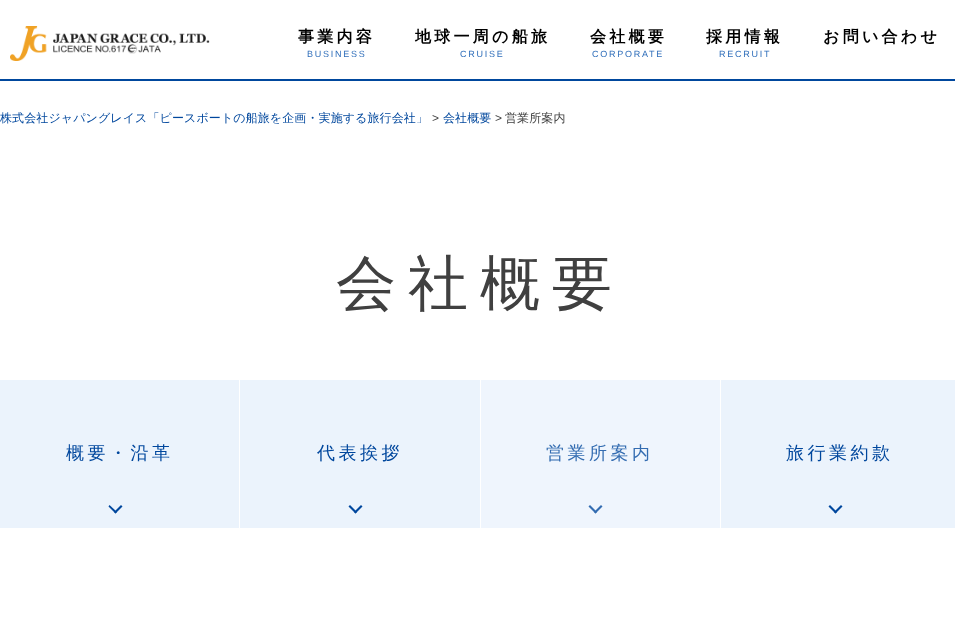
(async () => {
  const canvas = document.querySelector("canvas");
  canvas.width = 955;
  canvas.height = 618;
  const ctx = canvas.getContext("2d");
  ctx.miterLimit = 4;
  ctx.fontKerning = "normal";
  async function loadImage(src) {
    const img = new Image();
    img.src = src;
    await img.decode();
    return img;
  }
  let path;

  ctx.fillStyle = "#ffffff";
  ctx.fillRect(0, 0, 955, 618);
  ctx.fillStyle = "#00479d";
  ctx.fillRect(0, 79, 955, 2);
  ctx.drawImage(await loadImage("img/1.png"), 10, 26, 200, 35);
  ctx.fillStyle = "#ebf3fc";
  ctx.fillRect(0, 380, 239, 148);
  ctx.fillStyle = "#00479d";
  path = new Path2D("M122.5 506.5L115.5 513.5L114 512L121 505Z");
  ctx.fill(path);
  path = new Path2D("M117 512L115.5 513.5L108.5 506.5L109.5 505Z");
  ctx.fill(path);
  ctx.fillStyle = "#ebf3fc";
  ctx.fillRect(240, 380, 240, 148);
  ctx.fillStyle = "#00479d";
  path = new Path2D("M362.5 506.5L355.5 513.5L354 512L361 505Z");
  ctx.fill(path);
  path = new Path2D("M357 512L355.5 513.5L348.5 506.5L350 505Z");
  ctx.fill(path);
  ctx.fillStyle = "#eff5fd";
  ctx.fillRect(481, 380, 239, 148);
  ctx.fillStyle = "#336cb1";
  path = new Path2D("M602.5 506.5L595.5 513.5L594 512L601 505Z");
  ctx.fill(path);
  path = new Path2D("M597 512L595.5 513.5L588.5 506.5L590 505Z");
  ctx.fill(path);
  ctx.fillStyle = "#ebf3fc";
  ctx.fillRect(721, 380, 234, 148);
  ctx.fillStyle = "#00479d";
  path = new Path2D("M842.5 506.5L835.5 513.5L834 512L841 505Z");
  ctx.fill(path);
  path = new Path2D("M837 512L835.5 513.5L828.5 506.5L830 505Z");
  ctx.fill(path);
  ctx.letterSpacing = "3.25px";
  ctx.font = "bold 16px WenQuanYi Zen Hei";
  ctx.fillStyle = "#000000";
  ctx.fillText("事業内容", 298, 42);
  ctx.letterSpacing = "1.75px";
  ctx.font = "9px Liberation Sans";
  ctx.fillStyle = "#2f6eba";
  ctx.fillText("BUSINESS", 307, 57);
  ctx.letterSpacing = "3.25px";
  ctx.font = "bold 16px WenQuanYi Zen Hei";
  ctx.fillStyle = "#000000";
  ctx.fillText("地球一周の船旅", 415, 42);
  ctx.letterSpacing = "1.75px";
  ctx.font = "9px Liberation Sans";
  ctx.fillStyle = "#2f6eba";
  ctx.fillText("CRUISE", 460, 57);
  ctx.letterSpacing = "3.25px";
  ctx.font = "bold 16px WenQuanYi Zen Hei";
  ctx.fillStyle = "#000000";
  ctx.fillText("会社概要", 590, 42);
  ctx.letterSpacing = "1.75px";
  ctx.font = "9px Liberation Sans";
  ctx.fillStyle = "#2f6eba";
  ctx.fillText("CORPORATE", 592, 57);
  ctx.letterSpacing = "3.25px";
  ctx.font = "bold 16px WenQuanYi Zen Hei";
  ctx.fillStyle = "#000000";
  ctx.fillText("採用情報", 706, 42);
  ctx.letterSpacing = "1.75px";
  ctx.font = "9px Liberation Sans";
  ctx.fillStyle = "#2f6eba";
  ctx.fillText("RECRUIT", 719, 57);
  ctx.letterSpacing = "3.25px";
  ctx.font = "bold 16px WenQuanYi Zen Hei";
  ctx.fillStyle = "#000000";
  ctx.fillText("お問い合わせ", 823, 42);
  ctx.letterSpacing = "0.1px";
  ctx.font = "500 12px WenQuanYi Zen Hei";
  ctx.fillStyle = "#00479d";
  ctx.fillText("株式会社ジャパングレイス「ピースボートの船旅を企画・実施する旅行会社」", 0, 122);
  ctx.font = "12px Liberation Sans";
  ctx.fillStyle = "#404040";
  ctx.fillText(">", 432, 122);
  ctx.font = "500 12px WenQuanYi Zen Hei";
  ctx.fillStyle = "#00479d";
  ctx.fillText("会社概要", 443, 122);
  ctx.font = "12px Liberation Sans";
  ctx.fillStyle = "#404040";
  ctx.fillText(">", 495, 122);
  ctx.font = "500 12px WenQuanYi Zen Hei";
  ctx.fillText("営業所案内", 505, 122);
  ctx.letterSpacing = "12px";
  ctx.font = "500 60px WenQuanYi Zen Hei";
  ctx.fillText("会社概要", 336, 304);
  ctx.letterSpacing = "3.5px";
  ctx.font = "500 18px WenQuanYi Zen Hei";
  ctx.fillStyle = "#00479d";
  ctx.fillText("概要・沿革", 66, 459);
  ctx.fillText("代表挨拶", 317, 459);
  ctx.fillStyle = "#336cb1";
  ctx.fillText("営業所案内", 546, 459);
  ctx.fillStyle = "#00479d";
  ctx.fillText("旅行業約款", 786, 459);
})();
